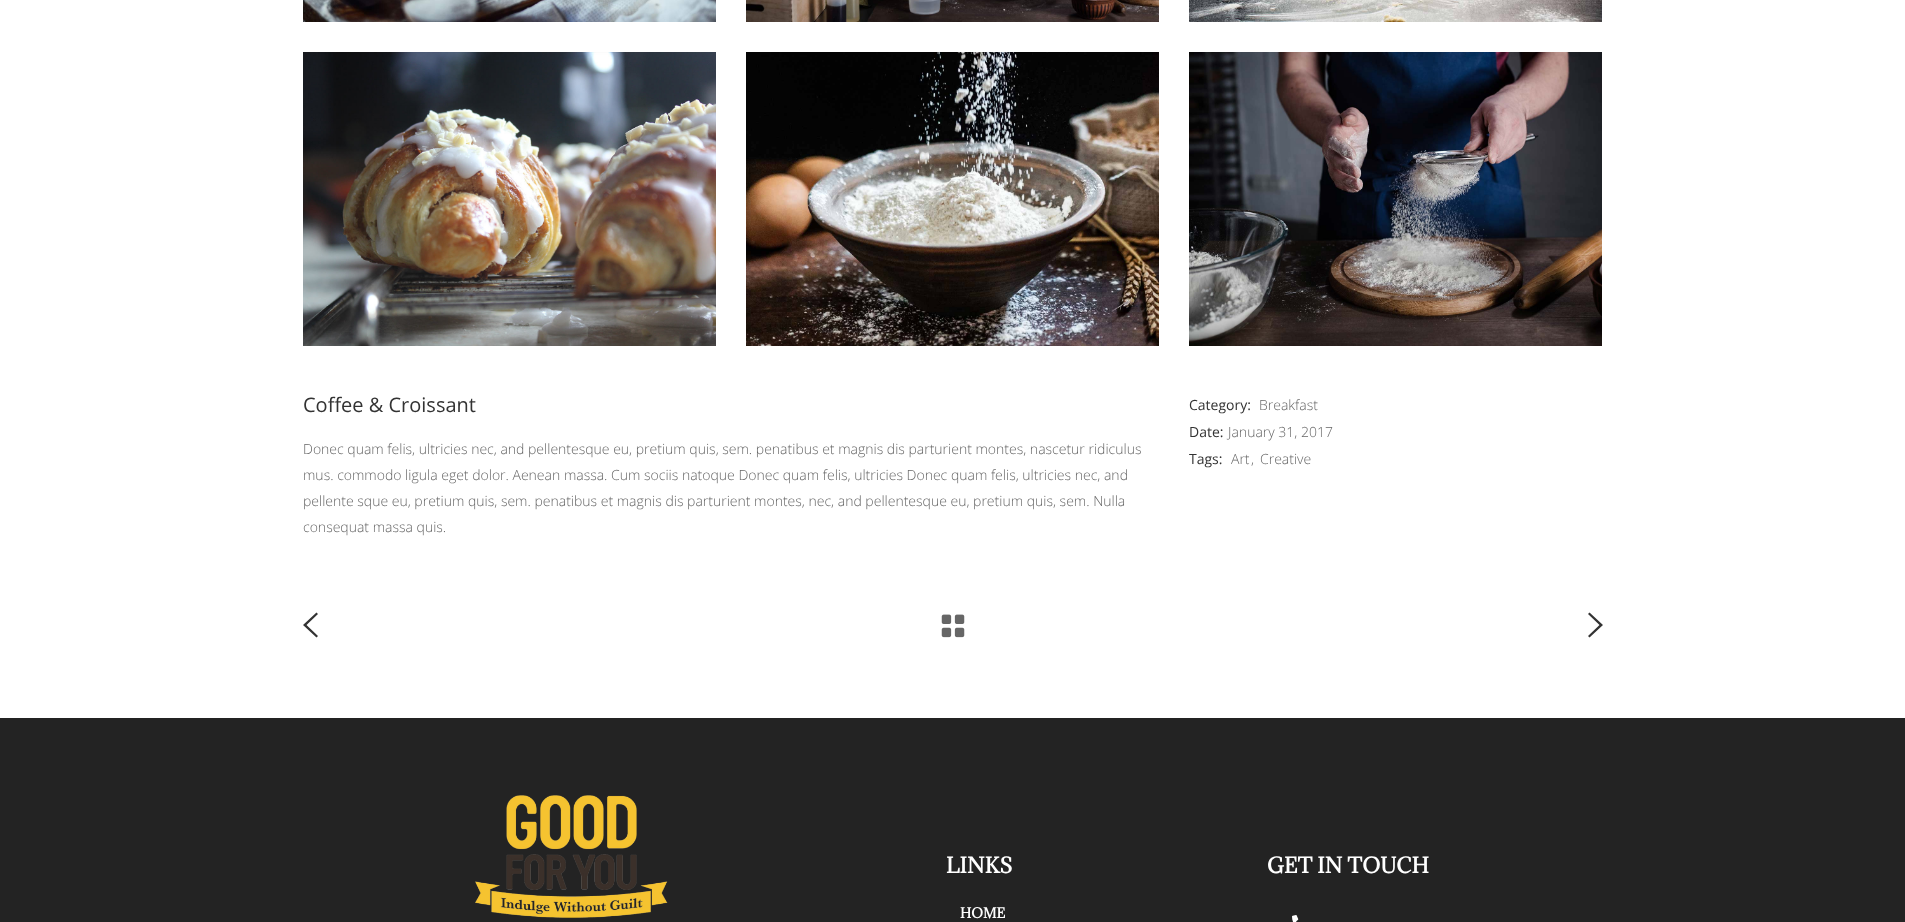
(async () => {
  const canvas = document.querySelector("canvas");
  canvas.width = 1905;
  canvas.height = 922;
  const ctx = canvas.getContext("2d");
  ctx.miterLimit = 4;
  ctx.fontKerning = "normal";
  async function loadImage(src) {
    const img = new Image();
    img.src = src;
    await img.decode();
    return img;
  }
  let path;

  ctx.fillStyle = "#ffffff";
  ctx.fillRect(0, 0, 1905, 922);
  ctx.drawImage(await loadImage("img/1.png"), 303, 0, 413, 22);
  ctx.drawImage(await loadImage("img/2.png"), 746, 0, 413, 22);
  ctx.drawImage(await loadImage("img/3.png"), 1189, 0, 413, 22);
  ctx.drawImage(await loadImage("img/4.png"), 303, 52, 413, 294);
  ctx.drawImage(await loadImage("img/5.png"), 746, 52, 413, 294);
  ctx.drawImage(await loadImage("img/6.png"), 1189, 52, 413, 294);
  ctx.fillStyle = "#333333";
  path = new Path2D("M318 614L306.5 625L318 636L316.5 637.5L303 625L316.5 612.5Z");
  ctx.fill(path);
  ctx.drawImage(await loadImage("img/7.png"), 941, 614, 24, 24);
  path = new Path2D("M1588 614L1589.5 612.5L1603 625L1589.5 637.5L1588 636L1599.5 625Z");
  ctx.fill(path);
  ctx.fillStyle = "#232323";
  ctx.fillRect(0, 718, 1905, 204);
  ctx.drawImage(await loadImage("img/8.png"), 475, 795, 193, 123);
  ctx.drawImage(await loadImage("img/9.png"), 1292, 915, 7, 7);
  ctx.font = "20px Open Sans";
  ctx.fillStyle = "#333333";
  ctx.fillText("Coffee & Croissant", 303, 412);
  ctx.font = "300 14px Open Sans";
  ctx.fillStyle = "#666666";
  for (const [text, x, y] of [
    ["Donec quam felis, ultricies nec, and pellentesque eu, pretium quis, sem. penatibus et magnis dis parturient montes, nascetur ridiculus", 303, 454],
    ["mus. commodo ligula eget dolor. Aenean massa. Cum sociis natoque Donec quam felis, ultricies Donec quam felis, ultricies nec, and", 303, 480],
    ["pellente sque eu, pretium quis, sem. penatibus et magnis dis parturient montes, nec, and pellentesque eu, pretium quis, sem. Nulla", 303, 506],
    ["consequat massa quis.", 303, 532],
  ]) {
    ctx.fillText(text, x, y);
  }
  ctx.font = "14px Open Sans";
  ctx.fillStyle = "#333333";
  ctx.fillText("Category:", 1189, 410);
  ctx.font = "300 14px Open Sans";
  ctx.fillStyle = "#666666";
  ctx.fillText("Breakfast", 1259, 410);
  ctx.font = "14px Open Sans";
  ctx.fillStyle = "#333333";
  ctx.fillText("Date:", 1189, 437);
  ctx.font = "300 14px Open Sans";
  ctx.fillStyle = "#666666";
  ctx.fillText("January 31, 2017", 1228, 437);
  ctx.font = "14px Open Sans";
  ctx.fillStyle = "#333333";
  ctx.fillText("Tags:", 1189, 464);
  ctx.font = "300 14px Open Sans";
  ctx.fillStyle = "#666666";
  for (const [text, x, y] of [
    ["Art", 1231, 464],
    [",", 1251, 464],
    ["Creative", 1260, 464],
  ]) {
    ctx.fillText(text, x, y);
  }
  ctx.font = "bold 20px Adamina";
  ctx.fillStyle = "#ffffff";
  ctx.fillText("LINKS", 946, 873);
  ctx.font = "bold 13px Adamina";
  ctx.fillText("HOME", 960, 918);
  ctx.font = "bold 20px Adamina";
  ctx.fillText("GET IN TOUCH", 1267, 873);
})();
